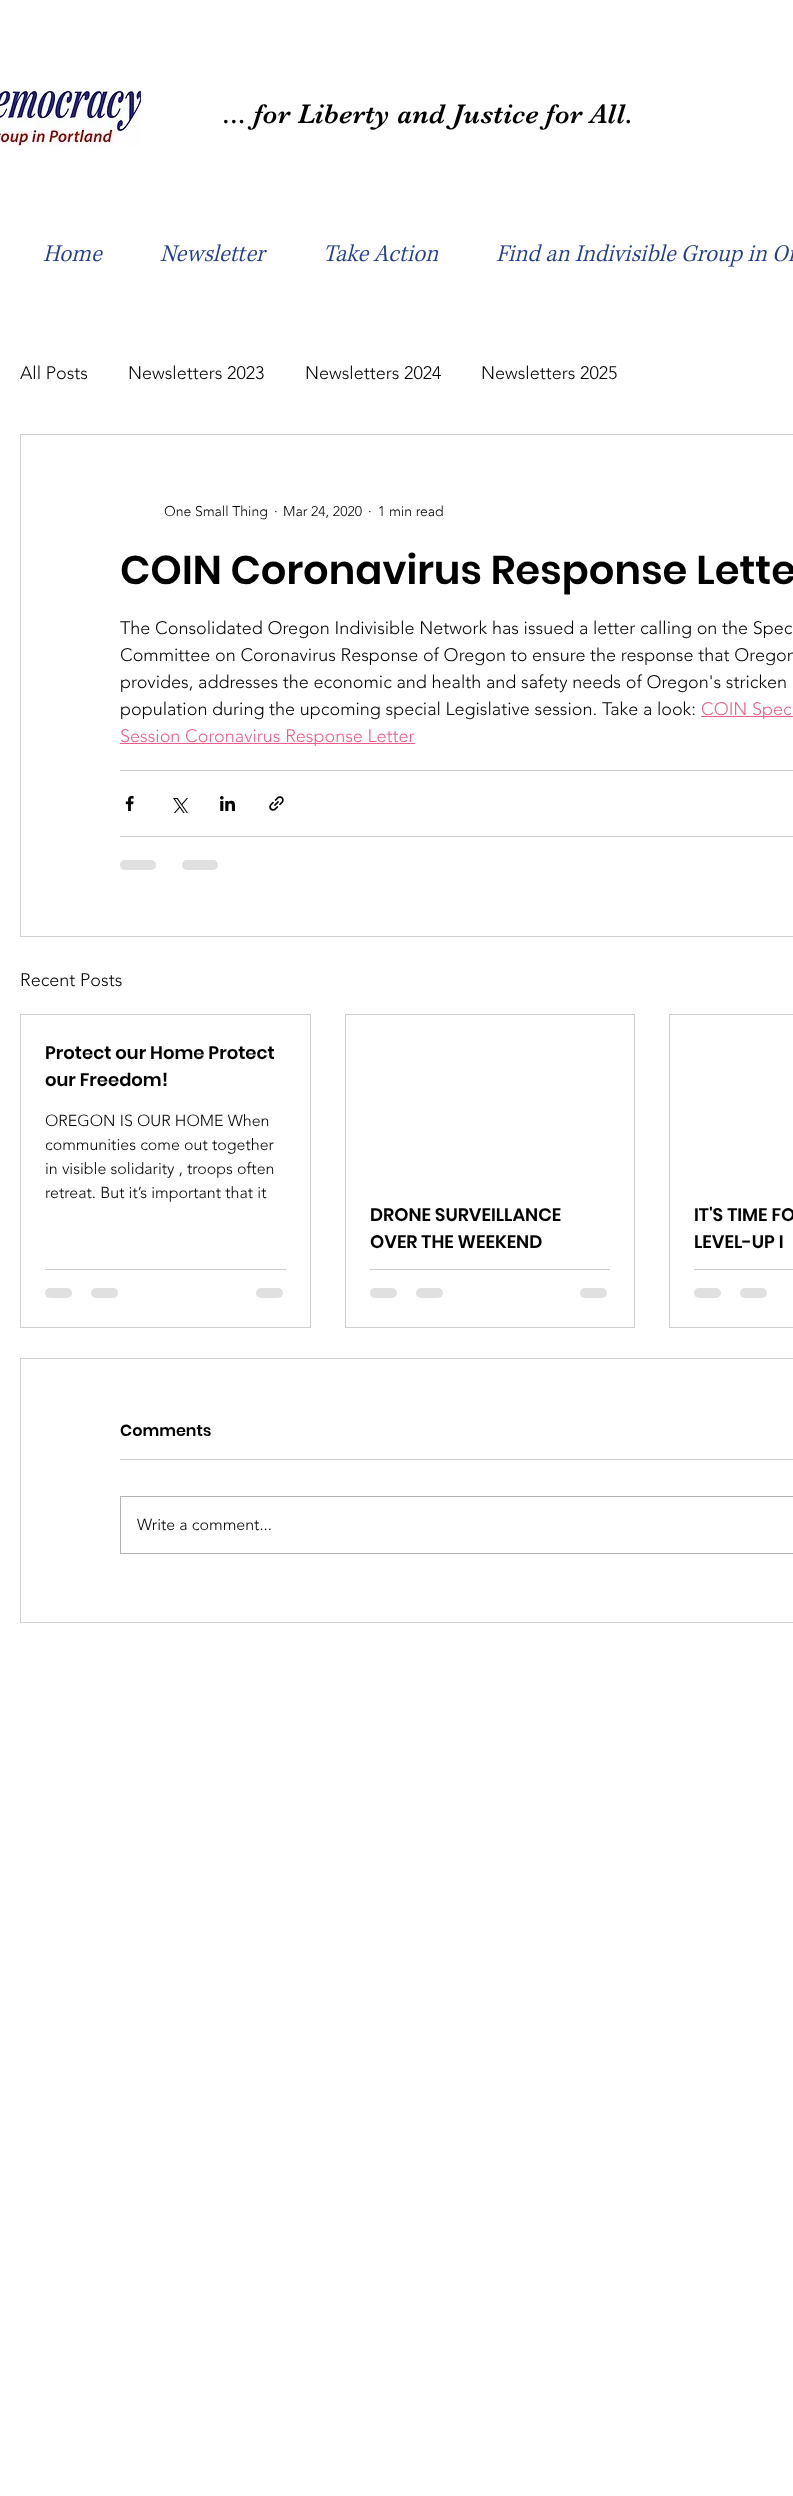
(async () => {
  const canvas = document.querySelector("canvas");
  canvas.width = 793;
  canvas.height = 2496;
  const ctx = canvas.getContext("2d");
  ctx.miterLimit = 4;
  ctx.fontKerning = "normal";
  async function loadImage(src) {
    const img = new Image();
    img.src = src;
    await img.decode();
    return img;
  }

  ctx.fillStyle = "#ffffff";
  ctx.fillRect(0, 0, 793, 2496);
  ctx.drawImage(await loadImage("img/1.png"), 0, 89, 141, 58);
  ctx.drawImage(await loadImage("img/2.png"), 43, 245, 60, 17);
  ctx.drawImage(await loadImage("img/3.png"), 160, 244, 107, 18);
  ctx.drawImage(await loadImage("img/4.png"), 326, 244, 113, 18);
  ctx.drawImage(await loadImage("img/5.png"), 496, 244, 297, 23);
  ctx.strokeStyle = "#cfcfcf";
  ctx.strokeRect(20.5, 434.5, 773, 502);
  for (const [x, y, w, h, color] of [
    [701, 716, 92, 1, "#ec5e87"],
    [120, 743, 295, 1, "#ec5e87"],
    [120, 770, 673, 1, "#cccccc"],
  ]) {
    ctx.fillStyle = color;
    ctx.fillRect(x, y, w, h);
  }
  ctx.drawImage(await loadImage("img/6.png"), 125, 796, 9, 15);
  ctx.drawImage(await loadImage("img/7.png"), 173, 798, 15, 15);
  ctx.drawImage(await loadImage("img/8.png"), 220, 796, 15, 15);
  ctx.drawImage(await loadImage("img/9.png"), 269, 796, 15, 15);
  ctx.fillRect(120, 836, 673, 1);
  ctx.fillStyle = "#e0e0e0";
  ctx.beginPath();
  ctx.roundRect(120, 860, 36, 10, 5);
  ctx.fill();
  ctx.beginPath();
  ctx.roundRect(182, 860, 36, 10, 5);
  ctx.fill();
  ctx.strokeRect(20.5, 1014.5, 290, 313);
  ctx.fillStyle = "#cccccc";
  ctx.fillRect(45, 1269, 241, 1);
  ctx.fillStyle = "#e0e0e0";
  ctx.beginPath();
  ctx.roundRect(45, 1288, 27, 10, 5);
  ctx.fill();
  ctx.beginPath();
  ctx.roundRect(91, 1288, 27, 10, 5);
  ctx.fill();
  ctx.beginPath();
  ctx.roundRect(256, 1288, 27, 10, 5);
  ctx.fill();
  ctx.strokeRect(345.5, 1014.5, 289, 313);
  ctx.fillStyle = "#cccccc";
  ctx.fillRect(370, 1269, 240, 1);
  ctx.fillStyle = "#e0e0e0";
  ctx.beginPath();
  ctx.roundRect(370, 1288, 27, 10, 5);
  ctx.fill();
  ctx.beginPath();
  ctx.roundRect(416, 1288, 27, 10, 5);
  ctx.fill();
  ctx.beginPath();
  ctx.roundRect(580, 1288, 27, 10, 5);
  ctx.fill();
  ctx.strokeRect(669.5, 1014.5, 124, 313);
  ctx.fillStyle = "#cccccc";
  ctx.fillRect(694, 1269, 99, 1);
  ctx.fillStyle = "#e0e0e0";
  ctx.beginPath();
  ctx.roundRect(694, 1288, 27, 10, 5);
  ctx.fill();
  ctx.beginPath();
  ctx.roundRect(740, 1288, 27, 10, 5);
  ctx.fill();
  ctx.strokeRect(20.5, 1358.5, 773, 264);
  ctx.fillStyle = "#cccccc";
  ctx.fillRect(120, 1459, 673, 1);
  ctx.strokeStyle = "#b3b3b3";
  ctx.strokeRect(120.5, 1496.5, 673, 57);
  ctx.letterSpacing = "0.3px";
  ctx.font = "28px 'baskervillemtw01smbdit'";
  ctx.fillStyle = "#000000";
  ctx.fillText("... for Liberty and Justice for All.", 223, 123);
  ctx.letterSpacing = "0px";
  ctx.font = "300 18px 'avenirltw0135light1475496'";
  for (const [text, x, y] of [
    ["All Posts", 20, 379],
    ["Newsletters 2023", 128, 379],
    ["Newsletters 2024", 305, 379],
    ["Newsletters 2025", 481, 379],
  ]) {
    ctx.fillText(text, x, y);
  }
  ctx.font = "300 14px 'avenirltw0135light1475496'";
  for (const [text, x, y] of [
    ["One Small Thing", 164, 516],
    ["·", 274, 516],
    ["Mar 24, 2020", 283, 516],
    ["·", 368, 516],
    ["1 min read", 378, 516],
  ]) {
    ctx.fillText(text, x, y);
  }
  ctx.font = "600 40px Poppins";
  ctx.fillText("COIN Coronavirus Response Lette", 120, 584);
  ctx.font = "300 18px 'avenirltw0135light1475496'";
  for (const [text, x, y] of [
    ["The Consolidated Oregon Indivisible Network has issued a letter calling on the Spec", 120, 634],
    ["Committee on Coronavirus Response of Oregon to ensure the response that Oregon", 120, 661],
    ["provides, addresses the economic and health and safety needs of Oregon's stricken", 120, 688],
    ["population during the upcoming special Legislative session. Take a look:", 120, 715],
  ]) {
    ctx.fillText(text, x, y);
  }
  ctx.fillStyle = "#ec5e87";
  ctx.fillText("COIN Spec", 701, 715);
  ctx.fillText("Session Coronavirus Response Letter", 120, 742);
  ctx.fillStyle = "#000000";
  ctx.fillText("Recent Posts", 20, 986);
  ctx.font = "600 18px Poppins";
  ctx.fillText("Protect our Home Protect", 45, 1059);
  ctx.fillText("our Freedom!", 45, 1086);
  ctx.font = "300 16px 'avenirltw0135light1475496'";
  for (const [text, x, y] of [
    ["OREGON IS OUR HOME When", 45, 1126],
    ["communities come out together", 45, 1150],
    ["in visible solidarity , troops often", 45, 1174],
    ["retreat. But it’s important that it", 45, 1198],
  ]) {
    ctx.fillText(text, x, y);
  }
  ctx.font = "600 18px Poppins";
  for (const [text, x, y] of [
    ["DRONE SURVEILLANCE", 370, 1221],
    ["OVER THE WEEKEND", 370, 1248],
    ["IT'S TIME FO", 694, 1221],
    ["LEVEL-UP I", 694, 1248],
  ]) {
    ctx.fillText(text, x, y);
  }
  ctx.font = "600 16px Poppins";
  ctx.fillText("Comments", 120, 1436);
  ctx.font = "300 16px 'avenirltw0135light1475496'";
  ctx.fillText("Write a comment...", 137, 1530);
})();
